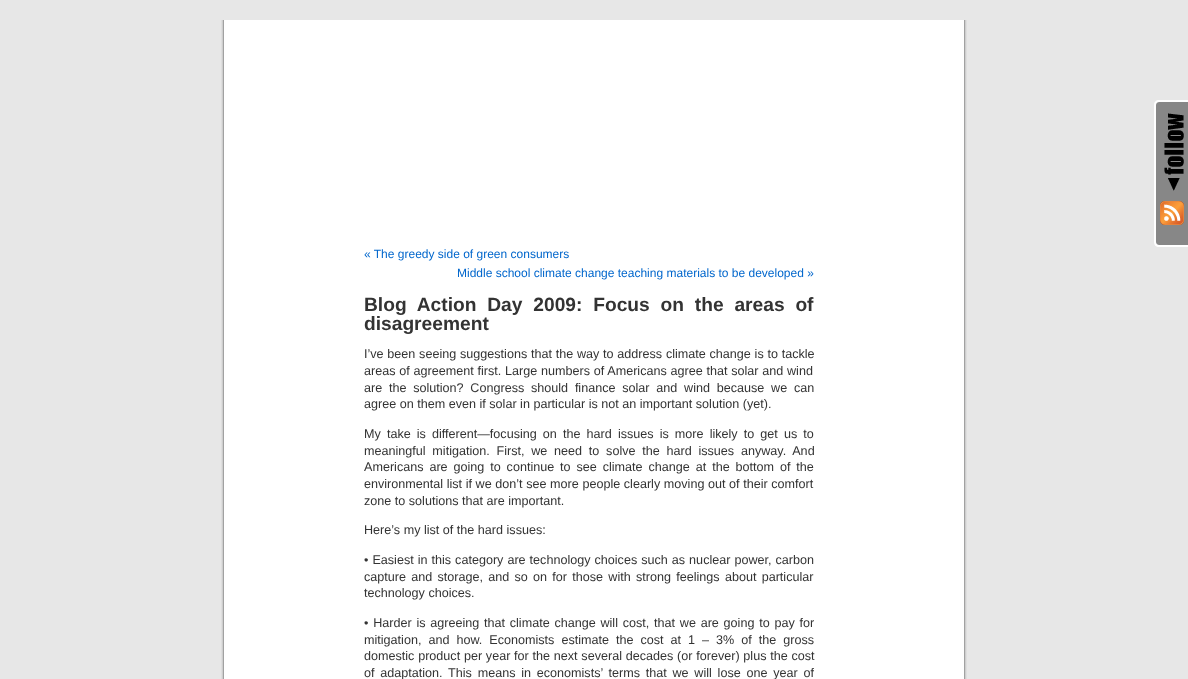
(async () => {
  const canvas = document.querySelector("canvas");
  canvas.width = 1188;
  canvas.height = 679;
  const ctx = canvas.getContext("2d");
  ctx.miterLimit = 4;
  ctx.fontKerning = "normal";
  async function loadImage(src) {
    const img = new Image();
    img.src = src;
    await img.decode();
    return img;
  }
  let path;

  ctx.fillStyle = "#e7e7e7";
  ctx.fillRect(0, 0, 1188, 679);
  ctx.fillStyle = "#878787";
  ctx.beginPath();
  ctx.roundRect(1156, 102, 32, 143, [3, 0, 0, 3]);
  ctx.fill();
  ctx.fillStyle = "#ffffff";
  path = new Path2D("M1159 100H1188V247H1159C1156 247 1154 245 1154 242V105C1154 102 1156 100 1159 100ZM1159 102H1188V245H1159C1157 245 1156 244 1156 242V105C1156 103 1157 102 1159 102Z");
  ctx.fill(path, "evenodd");
  ctx.drawImage(await loadImage("img/1.png"), 1164, 113, 20, 78);
  ctx.drawImage(await loadImage("img/2.png"), 1160, 201, 24, 24);
  ctx.drawImage(await loadImage("img/3.png"), 221, 20, 746, 659);
  ctx.font = "12px Liberation Sans";
  ctx.fillStyle = "#0066cc";
  ctx.fillText("« The greedy side of green consumers", 364, 258);
  ctx.fillText("Middle school climate change teaching materials to be developed »", 457, 277);
  ctx.wordSpacing = "5.5px";
  ctx.font = "bold 19.2px Liberation Sans";
  ctx.fillStyle = "#333333";
  ctx.fillText("Blog Action Day 2009: Focus on the areas of", 364, 311);
  ctx.wordSpacing = "0px";
  ctx.fillText("disagreement", 364, 330);
  ctx.wordSpacing = "0.25px";
  ctx.font = "12.6px Liberation Sans";
  ctx.fillText("I’ve been seeing suggestions that the way to address climate change is to tackle", 364, 358);
  ctx.fillText("areas of agreement first. Large numbers of Americans agree that solar and wind", 364, 375);
  ctx.wordSpacing = "3.25px";
  ctx.fillText("are the solution? Congress should finance solar and wind because we can", 364, 392);
  ctx.wordSpacing = "0px";
  ctx.fillText("agree on them even if solar in particular is not an important solution (yet).", 364, 408);
  ctx.wordSpacing = "2.6px";
  ctx.fillText("My take is different—focusing on the hard issues is more likely to get us to", 364, 438);
  ctx.wordSpacing = "3.25px";
  ctx.fillText("meaningful mitigation. First, we need to solve the hard issues anyway. And", 364, 455);
  ctx.wordSpacing = "2.4px";
  ctx.fillText("Americans are going to continue to see climate change at the bottom of the", 364, 471);
  ctx.wordSpacing = "0.1px";
  ctx.fillText("environmental list if we don’t see more people clearly moving out of their comfort", 364, 488);
  ctx.wordSpacing = "0px";
  ctx.fillText("zone to solutions that are important.", 364, 505);
  ctx.fillText("Here’s my list of the hard issues:", 364, 534);
  ctx.wordSpacing = "0.5px";
  ctx.fillText("• Easiest in this category are technology choices such as nuclear power, carbon", 364, 564);
  ctx.wordSpacing = "1.75px";
  ctx.fillText("capture and storage, and so on for those with strong feelings about particular", 364, 581);
  ctx.wordSpacing = "0px";
  ctx.fillText("technology choices.", 364, 597);
  ctx.wordSpacing = "1.25px";
  ctx.fillText("• Harder is agreeing that climate change will cost, that we are going to pay for", 364, 627);
  ctx.wordSpacing = "3.5px";
  ctx.fillText("mitigation, and how. Economists estimate the cost at 1 – 3% of the gross", 364, 644);
  ctx.wordSpacing = "0.25px";
  ctx.fillText("domestic product per year for the next several decades (or forever) plus the cost", 364, 660);
  ctx.wordSpacing = "2.25px";
  ctx.fillText("of adaptation. This means in economists’ terms that we will lose one year of", 364, 677);
})();
